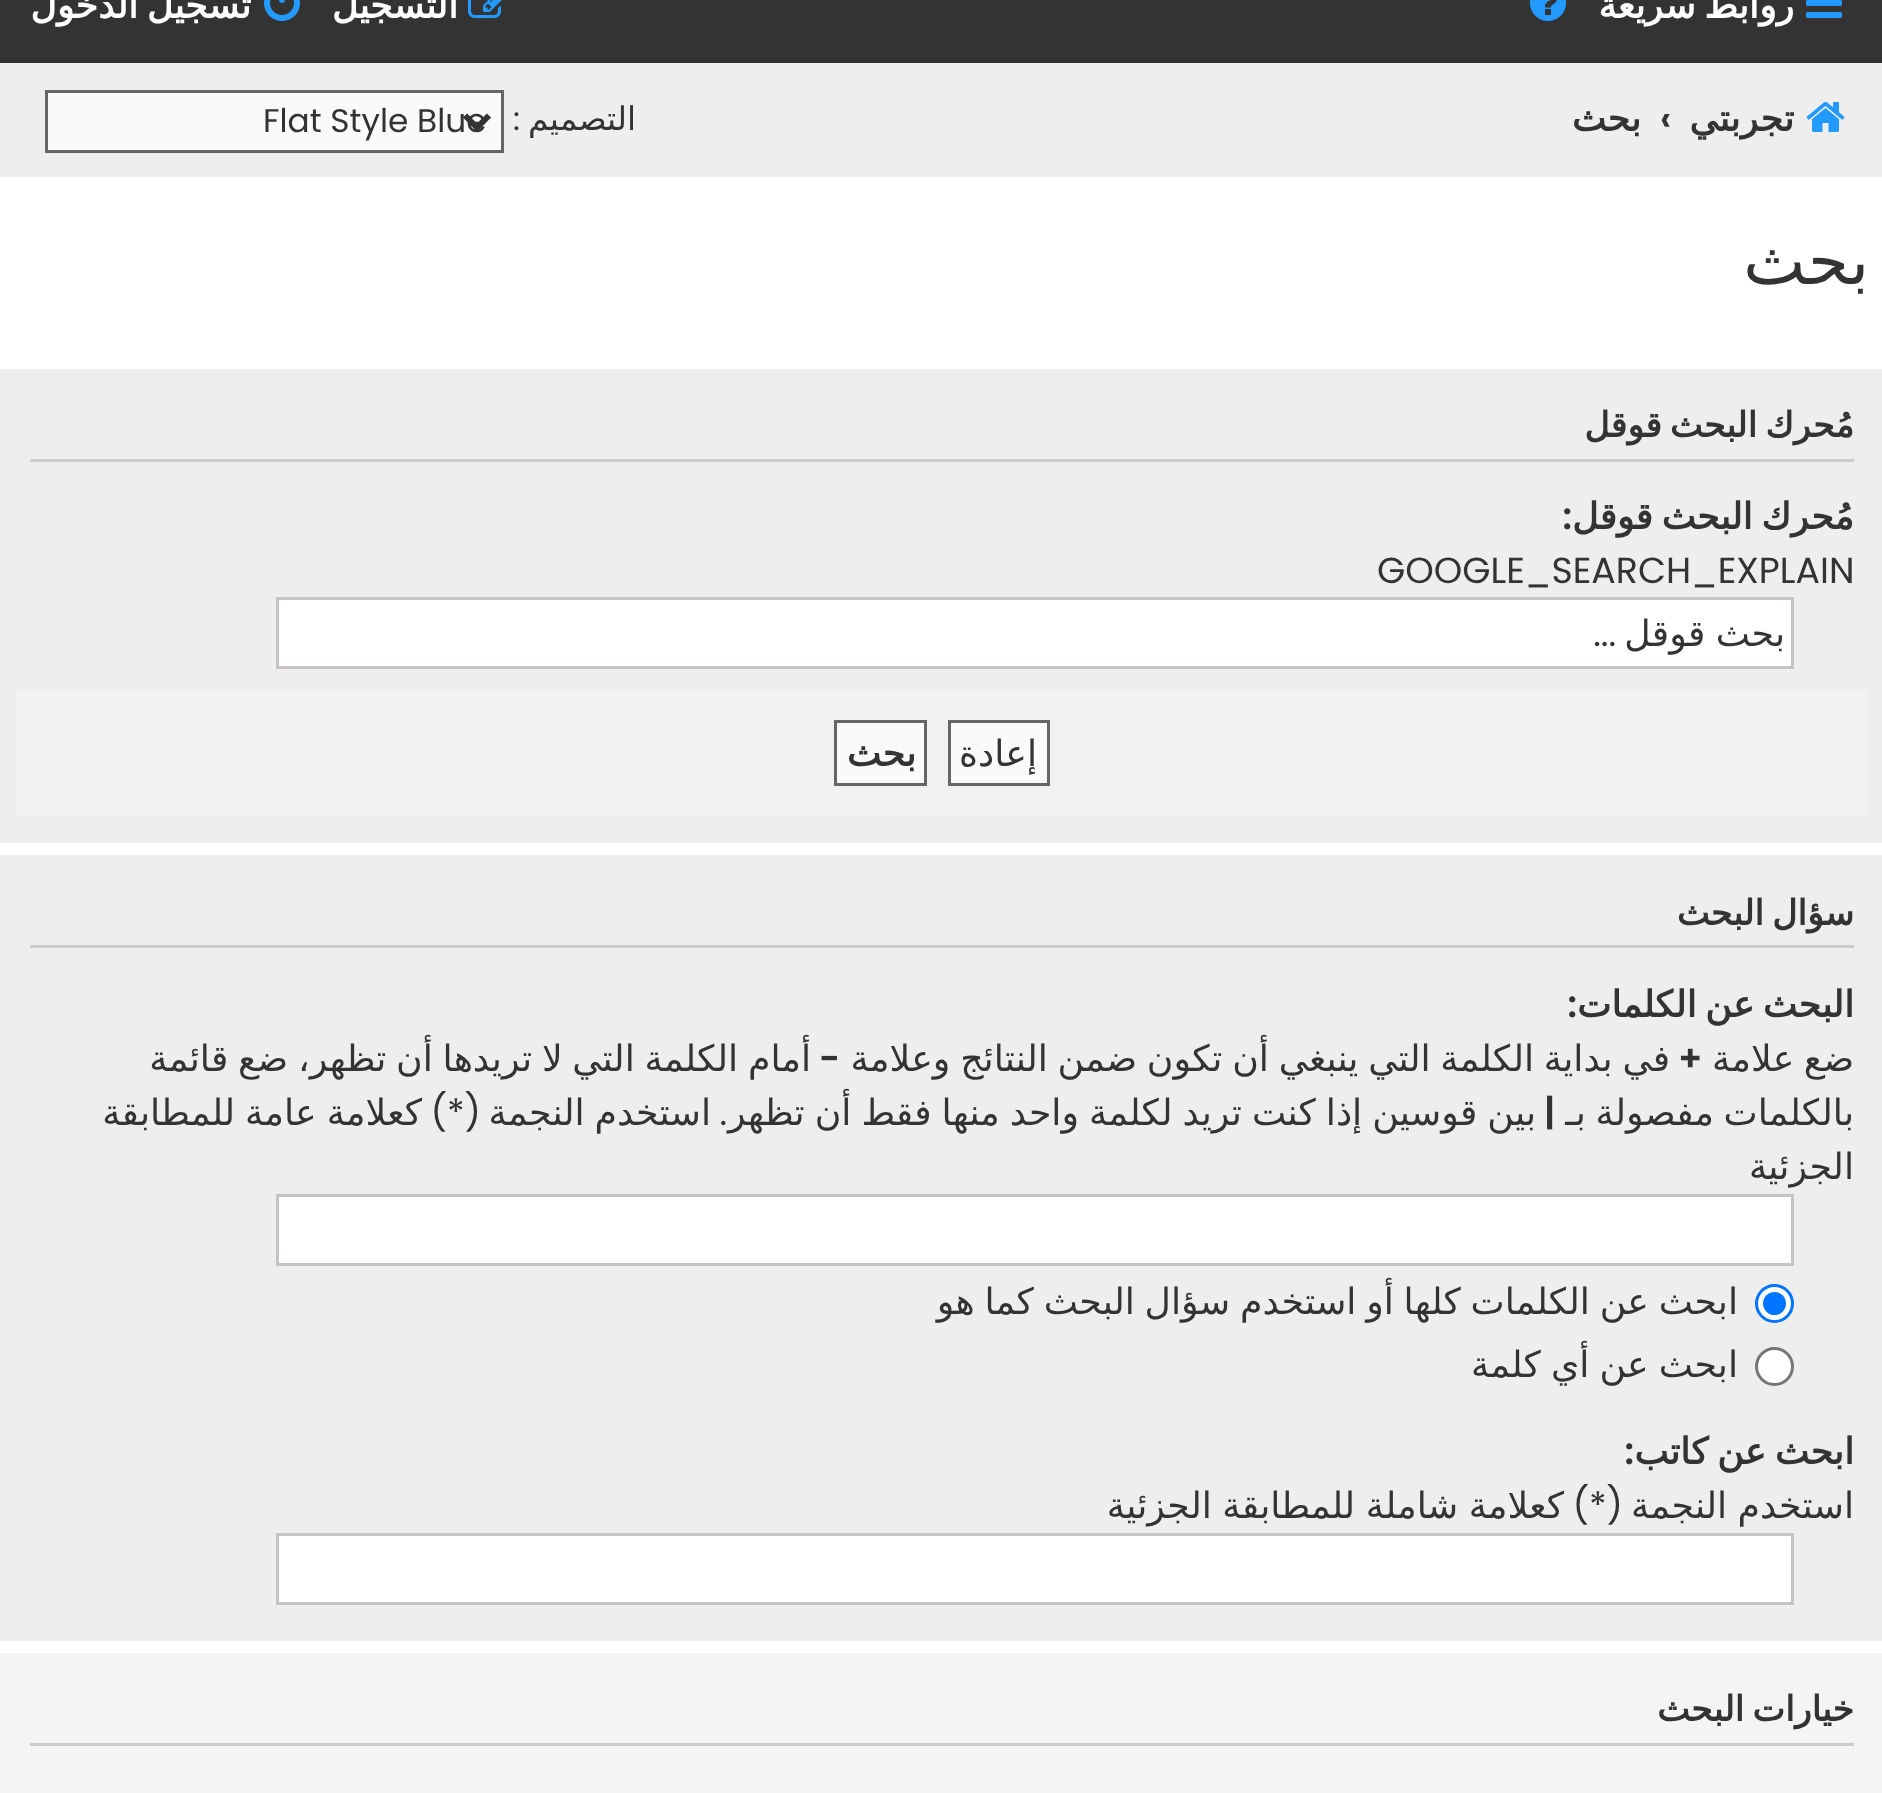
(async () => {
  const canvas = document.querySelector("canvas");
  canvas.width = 1882;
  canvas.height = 1793;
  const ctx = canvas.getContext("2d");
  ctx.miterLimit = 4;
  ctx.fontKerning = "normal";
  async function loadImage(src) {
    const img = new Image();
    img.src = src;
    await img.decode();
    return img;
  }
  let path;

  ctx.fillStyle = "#ffffff";
  ctx.fillRect(0, 0, 1882, 1793);
  ctx.fillStyle = "#333333";
  ctx.fillRect(0, 0, 1882, 63);
  ctx.drawImage(await loadImage("img/1.png"), 1806, 0, 36, 18);
  ctx.drawImage(await loadImage("img/2.png"), 1530, 0, 36, 21);
  ctx.drawImage(await loadImage("img/3.png"), 468, 0, 34, 18);
  ctx.drawImage(await loadImage("img/4.png"), 264, 0, 36, 21);
  ctx.fillStyle = "#eeeeee";
  ctx.fillRect(0, 63, 1882, 114);
  ctx.drawImage(await loadImage("img/5.png"), 1806, 101, 39, 31);
  ctx.fillStyle = "#fafafa";
  ctx.beginPath();
  ctx.rect(46.5, 91.5, 456, 60);
  ctx.fill();
  ctx.strokeStyle = "#666666";
  ctx.lineWidth = 3;
  ctx.stroke();
  path = new Path2D("M465 115.5L477 127.5L489 115.5");
  ctx.strokeStyle = "#333333";
  ctx.lineWidth = 6;
  ctx.stroke(path);
  ctx.fillStyle = "#eeeeee";
  ctx.fillRect(0, 369, 1882, 474);
  ctx.fillStyle = "#cccccc";
  ctx.fillRect(30, 459, 1824, 3);
  ctx.fillStyle = "#ffffff";
  ctx.beginPath();
  ctx.rect(277.5, 598.5, 1515, 69);
  ctx.fill();
  ctx.strokeStyle = "#c7c3bf";
  ctx.lineWidth = 3;
  ctx.stroke();
  ctx.fillStyle = "#f1f1f1";
  ctx.fillRect(15, 690, 1854, 126);
  ctx.fillStyle = "#fafafa";
  ctx.beginPath();
  ctx.rect(949.5, 721.5, 99, 63);
  ctx.fill();
  ctx.strokeStyle = "#666666";
  ctx.stroke();
  ctx.beginPath();
  ctx.rect(835.5, 721.5, 90, 63);
  ctx.fill();
  ctx.stroke();
  ctx.fillStyle = "#eeeeee";
  ctx.fillRect(0, 855, 1882, 786);
  ctx.fillStyle = "#cccccc";
  ctx.fillRect(30, 945, 1824, 3);
  ctx.fillStyle = "#ffffff";
  ctx.beginPath();
  ctx.rect(277.5, 1195.5, 1515, 69);
  ctx.fill();
  ctx.strokeStyle = "#c7c3bf";
  ctx.stroke();
  ctx.beginPath();
  ctx.arc(1774.5, 1303.5, 18, 0, Math.PI * 2);
  ctx.fill();
  ctx.strokeStyle = "#0075ff";
  ctx.stroke();
  ctx.fillStyle = "#0075ff";
  ctx.beginPath();
  ctx.arc(1774.5, 1303.5, 11.5, 0, Math.PI * 2);
  ctx.fill();
  ctx.fillStyle = "#ffffff";
  ctx.beginPath();
  ctx.arc(1774.5, 1366.5, 18, 0, Math.PI * 2);
  ctx.fill();
  ctx.strokeStyle = "#767676";
  ctx.stroke();
  ctx.beginPath();
  ctx.rect(277.5, 1534.5, 1515, 69);
  ctx.fill();
  ctx.strokeStyle = "#c7c3bf";
  ctx.stroke();
  ctx.fillStyle = "#f4f4f4";
  ctx.fillRect(0, 1653, 1882, 140);
  ctx.fillStyle = "#cccccc";
  ctx.fillRect(30, 1743, 1824, 3);
  ctx.wordSpacing = "-3px";
  ctx.direction = "rtl";
  ctx.font = "bold 36.3px DejaVu Sans";
  ctx.fillStyle = "#ffffff";
  ctx.fillText("روابط سريعة", 1794, 18);
  ctx.wordSpacing = "0px";
  ctx.fillText("التسجيل", 458, 18);
  ctx.wordSpacing = "-3px";
  ctx.fillText("تسجيل الدخول", 251, 18);
  ctx.wordSpacing = "0px";
  ctx.fillStyle = "#333333";
  ctx.fillText("تجربتي", 1794, 131);
  ctx.direction = "ltr";
  ctx.font = "600 36.3px Poppins";
  ctx.fillText("‹", 1660, 131);
  ctx.direction = "rtl";
  ctx.font = "bold 36.3px DejaVu Sans";
  ctx.fillText("بحث", 1641, 131);
  ctx.font = "32.75px DejaVu Sans";
  ctx.fillText("التصميم", 636, 130);
  ctx.font = "32.75px Poppins";
  ctx.fillText(":", 520, 130);
  ctx.direction = "ltr";
  ctx.fillText("Flat Style Blue", 263, 132);
  ctx.direction = "rtl";
  ctx.font = "66px DejaVu Sans";
  ctx.fillText("بحث", 1869, 284);
  ctx.wordSpacing = "-3px";
  ctx.font = "bold 34.75px DejaVu Sans";
  ctx.fillText("مُحرك البحث قوقل", 1854, 437);
  ctx.save();
  ctx.beginPath();
  ctx.rect(30, 477, 1824, 213);
  ctx.clip();
  ctx.font = "bold 36.3px DejaVu Sans";
  ctx.fillText("مُحرك البحث قوقل", 1854, 529);
  ctx.restore();
  ctx.wordSpacing = "0px";
  ctx.font = "600 36.3px Poppins";
  ctx.fillText(":", 1572, 529);
  ctx.direction = "ltr";
  ctx.font = "36.3px Poppins";
  ctx.fillText("GOOGLE_SEARCH_EXPLAIN", 1377, 583);
  ctx.wordSpacing = "-1px";
  ctx.direction = "rtl";
  ctx.font = "36.3px DejaVu Sans";
  ctx.fillText("بحث قوقل", 1785, 646);
  ctx.wordSpacing = "0px";
  ctx.font = "36.3px Poppins";
  ctx.fillText("...", 1616, 646);
  ctx.font = "36.3px DejaVu Sans";
  ctx.fillText("إعادة", 1037, 766);
  ctx.font = "bold 36.3px DejaVu Sans";
  ctx.fillText("بحث", 916, 766);
  ctx.wordSpacing = "-3px";
  ctx.font = "bold 34.75px DejaVu Sans";
  ctx.fillText("سؤال البحث", 1854, 925);
  ctx.save();
  ctx.beginPath();
  ctx.rect(30, 966, 1824, 447);
  ctx.clip();
  ctx.font = "bold 36.3px DejaVu Sans";
  ctx.fillText("البحث عن الكلمات", 1854, 1017);
  ctx.restore();
  ctx.wordSpacing = "0px";
  ctx.font = "600 36.3px Poppins";
  ctx.fillText(":", 1577, 1017);
  ctx.wordSpacing = "-2px";
  ctx.font = "36.3px DejaVu Sans";
  ctx.fillText("ضع علامة", 1854, 1071);
  ctx.wordSpacing = "0px";
  ctx.direction = "ltr";
  ctx.font = "600 36.3px Poppins";
  ctx.fillText("+", 1678, 1071);
  ctx.wordSpacing = "-1.75px";
  ctx.direction = "rtl";
  ctx.font = "36.3px DejaVu Sans";
  ctx.fillText("في بداية الكلمة التي ينبغي أن تكون ضمن النتائج وعلامة", 1670, 1071);
  ctx.wordSpacing = "0px";
  ctx.direction = "ltr";
  ctx.font = "600 36.3px Poppins";
  ctx.fillText("-", 819, 1071);
  ctx.wordSpacing = "-1.75px";
  ctx.direction = "rtl";
  ctx.font = "36.3px DejaVu Sans";
  ctx.fillText("أمام الكلمة التي لا تريدها أن تظهر، ضع قائمة", 811, 1071);
  ctx.save();
  ctx.beginPath();
  ctx.rect(30, 966, 1824, 447);
  ctx.clip();
  ctx.wordSpacing = "-2px";
  ctx.fillText("بالكلمات مفصولة بـ", 1854, 1125);
  ctx.restore();
  ctx.wordSpacing = "0px";
  ctx.direction = "ltr";
  ctx.font = "600 36.3px Poppins";
  ctx.fillText("|", 1544, 1125);
  ctx.direction = "rtl";
  ctx.font = "36.3px Poppins";
  ctx.fillText(".", 727, 1125);
  ctx.wordSpacing = "-1.5px";
  ctx.font = "36.3px DejaVu Sans";
  ctx.fillText("بين قوسين إذا كنت تريد لكلمة واحد منها فقط أن تظهر", 1536, 1125);
  ctx.fillText("استخدم النجمة", 711, 1125);
  ctx.wordSpacing = "0px";
  ctx.font = "36.3px Poppins";
  ctx.fillText("(*)", 481, 1125);
  ctx.wordSpacing = "-1.5px";
  ctx.font = "36.3px DejaVu Sans";
  ctx.fillText("كعلامة عامة للمطابقة", 422, 1125);
  ctx.wordSpacing = "0px";
  ctx.fillText("الجزئية", 1854, 1179);
  ctx.wordSpacing = "-1.75px";
  ctx.fillText("ابحث عن الكلمات كلها أو استخدم سؤال البحث كما هو", 1738, 1314);
  ctx.wordSpacing = "-1.5px";
  ctx.fillText("ابحث عن أي كلمة", 1738, 1377);
  ctx.save();
  ctx.beginPath();
  ctx.rect(30, 1413, 1824, 213);
  ctx.clip();
  ctx.wordSpacing = "-3px";
  ctx.font = "bold 36.3px DejaVu Sans";
  ctx.fillText("ابحث عن كاتب", 1854, 1464);
  ctx.restore();
  ctx.wordSpacing = "0px";
  ctx.font = "600 36.3px Poppins";
  ctx.fillText(":", 1634, 1464);
  ctx.wordSpacing = "-1px";
  ctx.font = "36.3px DejaVu Sans";
  ctx.fillText("استخدم النجمة", 1854, 1518);
  ctx.wordSpacing = "0px";
  ctx.font = "36.3px Poppins";
  ctx.fillText("(*)", 1623, 1518);
  ctx.wordSpacing = "-1px";
  ctx.font = "36.3px DejaVu Sans";
  ctx.fillText("كعلامة شاملة للمطابقة الجزئية", 1564, 1518);
  ctx.wordSpacing = "-3px";
  ctx.font = "bold 34.75px DejaVu Sans";
  ctx.fillText("خيارات البحث", 1854, 1721);
})();
